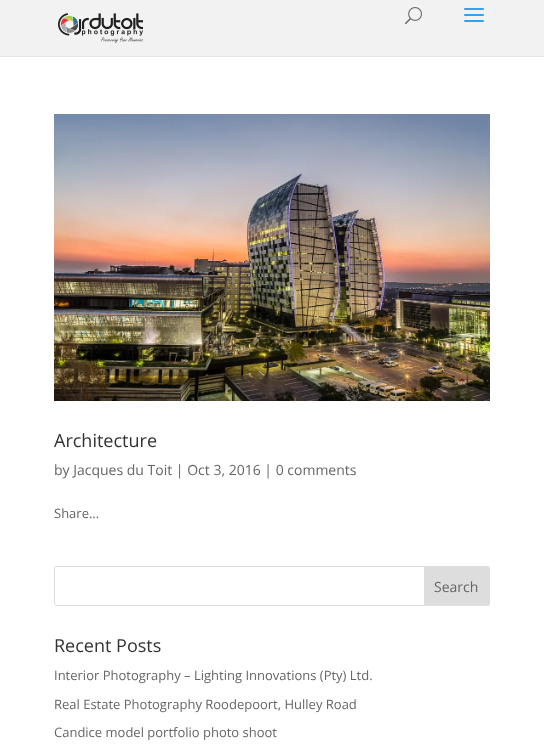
(async () => {
  const canvas = document.querySelector("canvas");
  canvas.width = 544;
  canvas.height = 749;
  const ctx = canvas.getContext("2d");
  ctx.miterLimit = 4;
  ctx.fontKerning = "normal";
  async function loadImage(src) {
    const img = new Image();
    img.src = src;
    await img.decode();
    return img;
  }

  ctx.fillStyle = "#ffffff";
  ctx.fillRect(0, 0, 544, 749);
  ctx.fillStyle = "#e6e6e6";
  ctx.fillRect(0, 56, 544, 1);
  ctx.fillStyle = "#f2f2f2";
  ctx.fillRect(0, 0, 544, 56);
  ctx.drawImage(await loadImage("img/1.png"), 58, 13, 85, 30);
  ctx.drawImage(await loadImage("img/2.png"), 405, 7, 17, 18);
  ctx.drawImage(await loadImage("img/3.png"), 464, 8, 20, 14);
  ctx.drawImage(await loadImage("img/4.png"), 54, 114, 436, 287);
  ctx.beginPath();
  ctx.roundRect(54.5, 566.5, 435, 39, 2.5);
  ctx.strokeStyle = "#dddddd";
  ctx.stroke();
  ctx.fillStyle = "#dddddd";
  ctx.beginPath();
  ctx.roundRect(424.5, 566.5, 65, 39, [0, 2.5, 2.5, 0]);
  ctx.fill();
  ctx.stroke();
  ctx.font = "18px Open Sans";
  ctx.fillStyle = "#333333";
  ctx.fillText("Architecture", 54, 447);
  ctx.font = "14px Open Sans";
  ctx.fillStyle = "#666666";
  ctx.fillText("by Jacques du Toit | Oct 3, 2016 | 0 comments", 54, 475);
  ctx.font = "13px Open Sans";
  ctx.fillText("Share...", 54, 518);
  ctx.font = "14px Open Sans";
  ctx.fillText("Search", 434, 592);
  ctx.font = "18px Open Sans";
  ctx.fillStyle = "#333333";
  ctx.fillText("Recent Posts", 54, 652);
  ctx.font = "13px Open Sans";
  ctx.fillStyle = "#666666";
  for (const [text, x, y] of [
    ["Interior Photography – Lighting Innovations (Pty) Ltd.", 54, 680],
    ["Real Estate Photography Roodepoort, Hulley Road", 54, 709],
    ["Candice model portfolio photo shoot", 54, 737],
  ]) {
    ctx.fillText(text, x, y);
  }
})();
